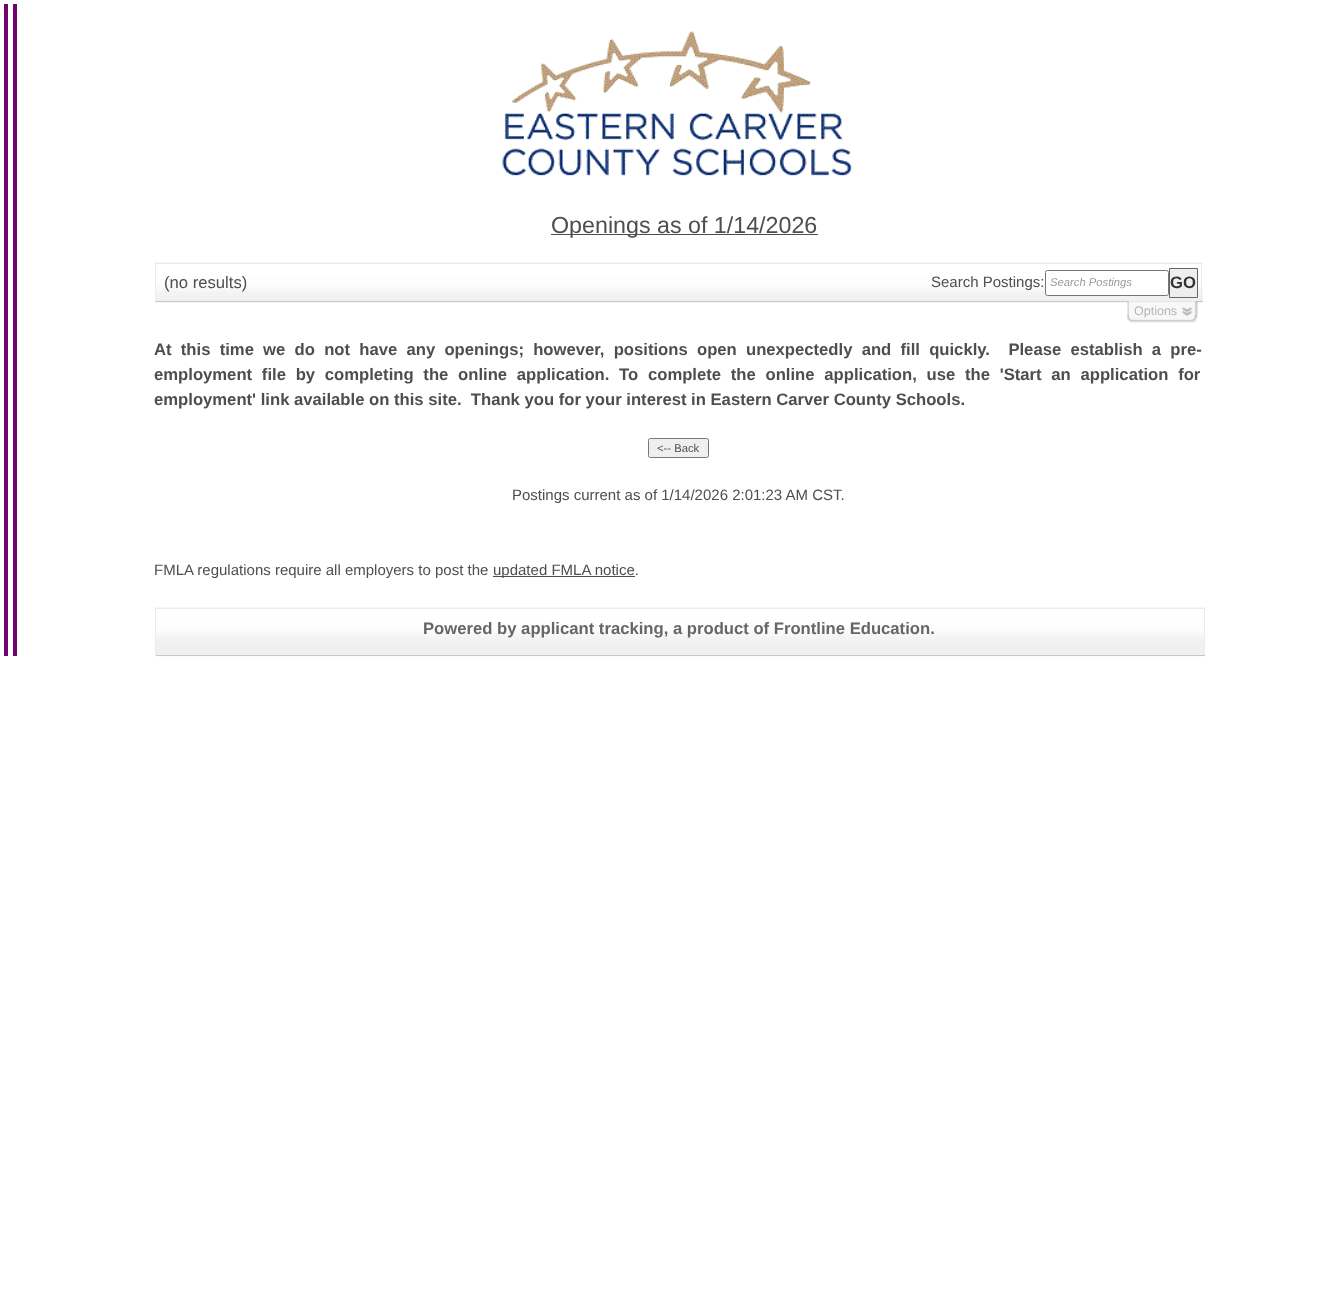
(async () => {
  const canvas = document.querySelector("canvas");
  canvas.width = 1338;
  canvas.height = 1304;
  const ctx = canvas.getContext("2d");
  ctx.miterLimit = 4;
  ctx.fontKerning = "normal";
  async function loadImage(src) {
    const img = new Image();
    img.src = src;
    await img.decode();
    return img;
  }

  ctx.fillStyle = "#ffffff";
  ctx.fillRect(0, 0, 1338, 1304);
  ctx.fillStyle = "#6d046f";
  ctx.fillRect(4, 4, 4, 652);
  ctx.fillRect(13, 4, 4, 652);
  ctx.drawImage(await loadImage("img/1.png"), 502, 31, 350, 145);
  ctx.fillStyle = "#4e4e4e";
  ctx.fillRect(551, 234, 267, 1);
  ctx.drawImage(await loadImage("img/2.png"), 155, 262, 1048, 41);
  for (const [x, y, w, h, color] of [
    [155, 263, 1048, 1, "#ebebeb"],
    [1201, 263, 1, 40, "#ebebeb"],
    [155, 301, 1048, 1, "#c7c7c7"],
    [155, 263, 1, 40, "#ebebeb"],
  ]) {
    ctx.fillStyle = color;
    ctx.fillRect(x, y, w, h);
  }
  ctx.fillStyle = "#ffffff";
  ctx.beginPath();
  ctx.roundRect(1045.5, 270.5, 123, 25, 2);
  ctx.fill();
  ctx.strokeStyle = "#767676";
  ctx.stroke();
  ctx.fillStyle = "#eeeeee";
  ctx.beginPath();
  ctx.rect(1169.5, 268.5, 28, 29);
  ctx.fill();
  ctx.strokeStyle = "#666666";
  ctx.stroke();
  ctx.drawImage(await loadImage("img/3.png"), 1127, 301, 71, 22);
  ctx.fillStyle = "#efefef";
  ctx.beginPath();
  ctx.roundRect(648.5, 438.5, 60, 19, 2);
  ctx.fill();
  ctx.strokeStyle = "#767676";
  ctx.stroke();
  ctx.fillStyle = "#4e4e4e";
  ctx.fillRect(493, 576, 142, 1);
  ctx.drawImage(await loadImage("img/4.png"), 155, 607, 1050, 50);
  for (const [x, y, w, h, color] of [
    [155, 608, 1050, 1, "#ebebeb"],
    [1204, 608, 1, 48, "#ebebeb"],
    [155, 655, 1050, 1, "#c7c7c7"],
    [155, 608, 1, 48, "#ebebeb"],
  ]) {
    ctx.fillStyle = color;
    ctx.fillRect(x, y, w, h);
  }
  ctx.font = "23.25px Liberation Sans";
  ctx.fillStyle = "#4e4e4e";
  ctx.fillText("Openings as of 1/14/2026", 551, 233);
  ctx.font = "16.67px Liberation Sans";
  ctx.fillText("(no results)", 164, 288);
  ctx.font = "15px Liberation Sans";
  ctx.fillText("Search Postings:", 931, 287);
  ctx.font = "italic 11.25px Liberation Sans";
  ctx.fillStyle = "#999999";
  ctx.fillText("Search Postings", 1050, 286);
  ctx.font = "bold 16.67px Liberation Sans";
  ctx.fillStyle = "#333333";
  ctx.fillText("GO", 1170, 288);
  ctx.font = "12.5px Liberation Sans";
  ctx.fillStyle = "#b5b5b5";
  ctx.fillText("Options", 1134, 315);
  ctx.wordSpacing = "4.6px";
  ctx.font = "bold 16.67px Liberation Sans";
  ctx.fillStyle = "#4e4e4e";
  ctx.fillText("At this time we do not have any openings; however, positions open unexpectedly and fill quickly.  Please establish a pre-", 154, 355);
  ctx.wordSpacing = "5.1px";
  ctx.fillText("employment file by completing the online application. To complete the online application, use the 'Start an application for", 154, 380);
  ctx.wordSpacing = "0px";
  ctx.fillText("employment' link available on this site.  Thank you for your interest in Eastern Carver County Schools.", 154, 405);
  ctx.font = "11.25px Liberation Sans";
  ctx.fillText("<-- Back", 657, 452);
  ctx.font = "15px Liberation Sans";
  for (const [text, x, y] of [
    ["Postings current as of 1/14/2026 2:01:23 AM CST.", 512, 500],
    ["FMLA regulations require all employers to post the", 154, 575],
    ["updated FMLA notice.", 493, 575],
  ]) {
    ctx.fillText(text, x, y);
  }
  ctx.font = "bold 16.67px Liberation Sans";
  ctx.fillStyle = "#666666";
  ctx.fillText("Powered by applicant tracking, a product of Frontline Education.", 423, 634);
})();
